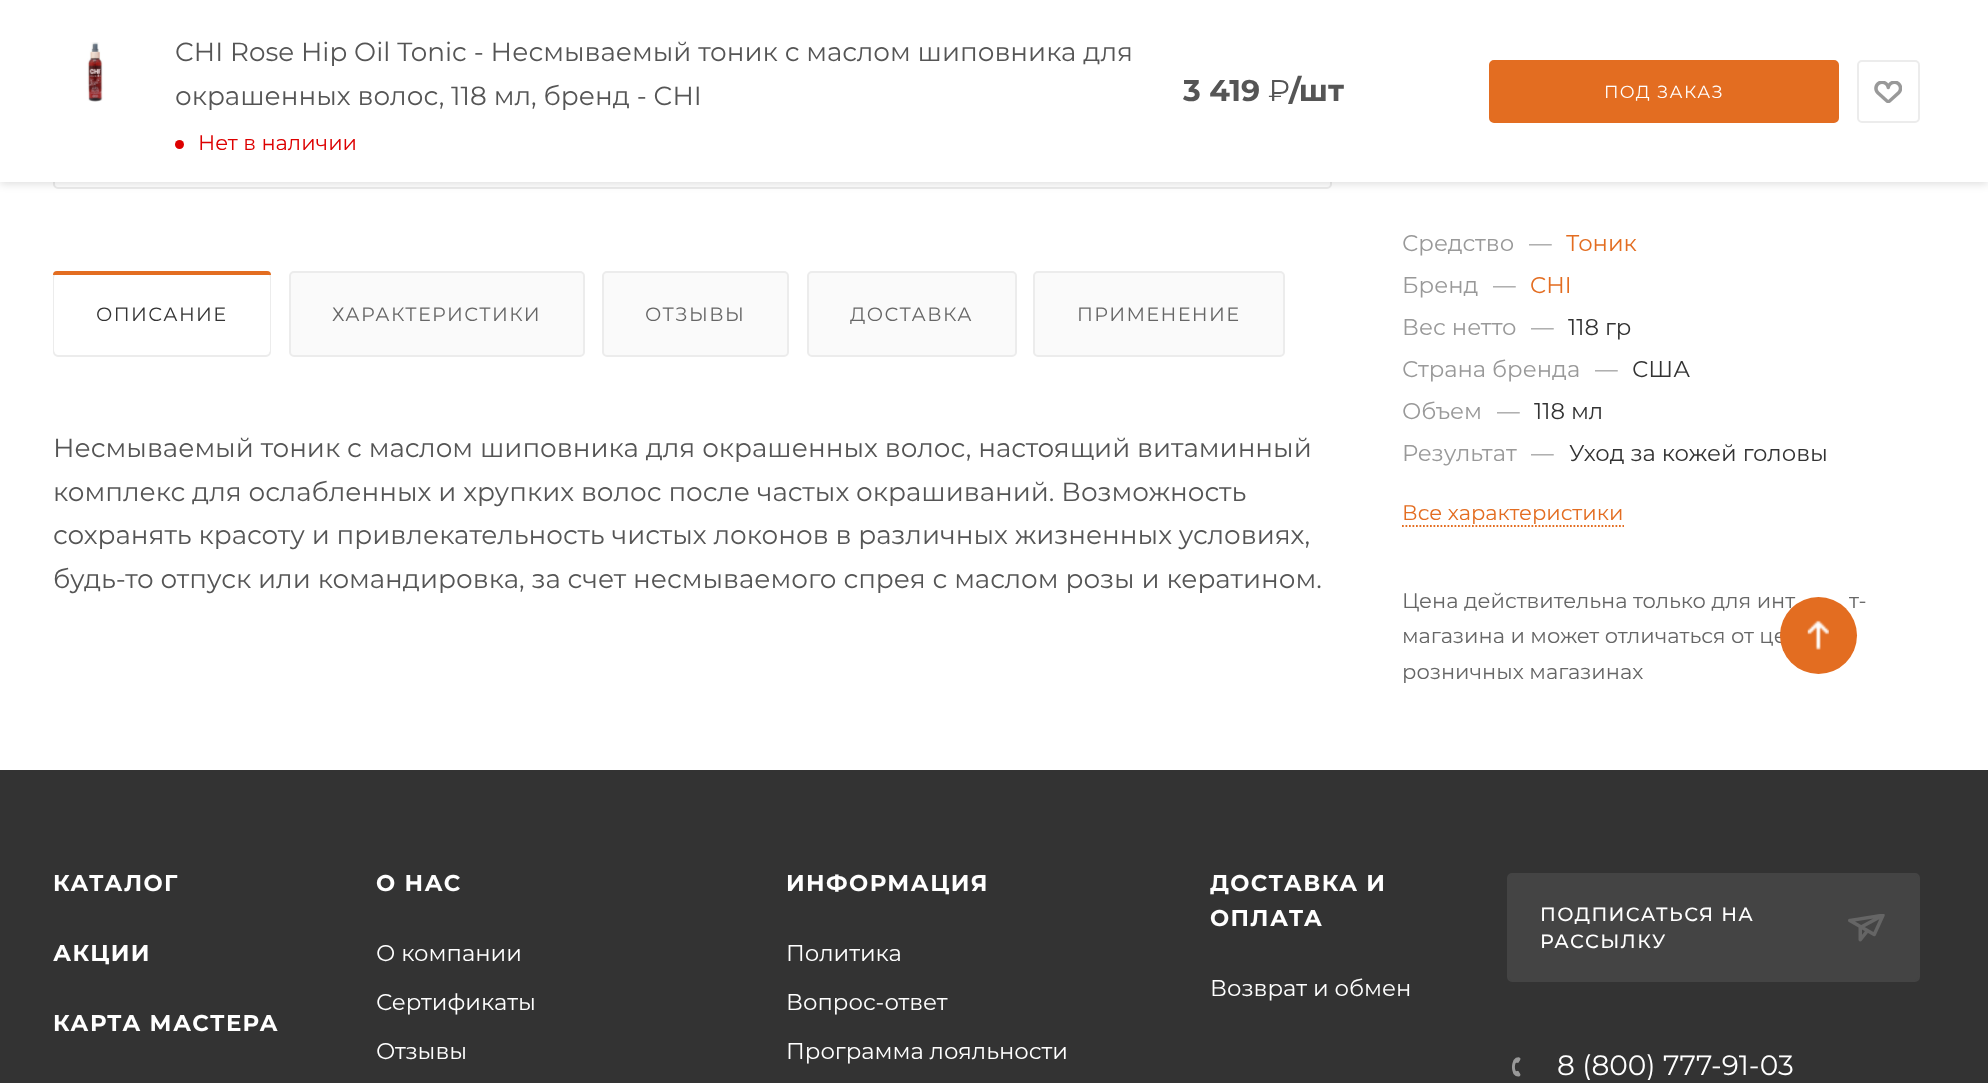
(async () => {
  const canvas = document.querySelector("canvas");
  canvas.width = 1988;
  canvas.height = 1083;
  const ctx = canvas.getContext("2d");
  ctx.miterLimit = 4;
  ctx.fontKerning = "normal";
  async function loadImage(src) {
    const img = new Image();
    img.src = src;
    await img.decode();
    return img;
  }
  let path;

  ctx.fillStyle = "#ffffff";
  ctx.fillRect(0, 0, 1988, 1083);
  ctx.beginPath();
  ctx.roundRect(54, -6, 1277, 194, 4);
  ctx.strokeStyle = "#ececec";
  ctx.lineWidth = 2;
  ctx.stroke();
  ctx.fillStyle = "rgba(0, 0, 0, 0.13)";
  ctx.filter = "blur(4.5px)";
  ctx.beginPath();
  ctx.rect(0, 2, 1988, 182);
  ctx.fill();
  ctx.filter = "none";
  ctx.fillStyle = "#ffffff";
  ctx.fillRect(0, 0, 1988, 182);
  ctx.drawImage(await loadImage("img/1.png"), 87, 42, 16, 60);
  ctx.fillStyle = "#dd0000";
  ctx.beginPath();
  ctx.arc(179.5, 144.5, 4.5, 0, Math.PI * 2);
  ctx.fill();
  ctx.fillStyle = "#e36d21";
  ctx.beginPath();
  ctx.roundRect(1490, 61, 348, 61, 4);
  ctx.fill();
  ctx.strokeStyle = "#e36d21";
  ctx.stroke();
  ctx.beginPath();
  ctx.roundRect(1858, 61, 61, 61, 4);
  ctx.strokeStyle = "#ececec";
  ctx.stroke();
  ctx.drawImage(await loadImage("img/2.png"), 1874, 81, 28, 22);
  ctx.fillStyle = "#fafafa";
  ctx.beginPath();
  ctx.roundRect(54, 272, 216, 84, 4);
  ctx.fill();
  ctx.stroke();
  ctx.fillStyle = "#ffffff";
  ctx.beginPath();
  ctx.roundRect(54, 273, 216, 82, 5);
  ctx.fill();
  ctx.fillStyle = "#e36d21";
  ctx.beginPath();
  ctx.roundRect(53, 271, 218, 4, [4, 4, 0, 0]);
  ctx.fill();
  ctx.fillStyle = "#fafafa";
  ctx.beginPath();
  ctx.roundRect(290, 272, 294, 84, 4);
  ctx.fill();
  ctx.stroke();
  ctx.beginPath();
  ctx.roundRect(603, 272, 185, 84, 4);
  ctx.fill();
  ctx.stroke();
  ctx.beginPath();
  ctx.roundRect(808, 272, 208, 84, 4);
  ctx.fill();
  ctx.stroke();
  ctx.beginPath();
  ctx.roundRect(1034, 272, 250, 84, 4);
  ctx.fill();
  ctx.stroke();
  path = new Path2D("M1402 526H1624");
  ctx.strokeStyle = "#e36d21";
  ctx.lineWidth = 1.8;
  ctx.setLineDash([1.75, 1.75]);
  ctx.stroke(path);
  ctx.fillStyle = "#333333";
  ctx.fillRect(0, 770, 1988, 313);
  ctx.fillStyle = "#444444";
  ctx.beginPath();
  ctx.roundRect(1508, 874, 411, 107, 4);
  ctx.fill();
  ctx.strokeStyle = "#444444";
  ctx.lineWidth = 2;
  ctx.setLineDash([]);
  ctx.stroke();
  ctx.drawImage(await loadImage("img/4.png"), 1848, 914, 37, 28);
  ctx.drawImage(await loadImage("img/5.png"), 1512, 1057, 9, 20);
  ctx.font = "26.25px Montserrat";
  ctx.fillStyle = "#555555";
  ctx.fillText("CHI Rose Hip Oil Tonic - Несмываемый тоник с маслом шиповника для", 175, 61);
  ctx.fillText("окрашенных волос, 118 мл, бренд - CHI", 175, 105);
  ctx.font = "21px Montserrat";
  ctx.fillStyle = "#dd0000";
  ctx.fillText("Нет в наличии", 198, 150);
  ctx.font = "bold 30px Montserrat";
  ctx.fillStyle = "#555555";
  ctx.fillText("3 419", 1183, 101);
  ctx.font = "30px 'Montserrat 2'";
  ctx.fillText("₽", 1268, 101);
  ctx.font = "bold 30px Montserrat";
  ctx.fillText("/шт", 1289, 101);
  ctx.letterSpacing = "1.4px";
  ctx.font = "17.5px Montserrat";
  ctx.fillStyle = "#ffffff";
  ctx.fillText("ПОД ЗАКАЗ", 1604, 98);
  ctx.font = "19.25px Montserrat";
  ctx.fillStyle = "#333333";
  ctx.fillText("ОПИСАНИЕ", 96, 321);
  ctx.fillStyle = "#666666";
  for (const [text, x, y] of [
    ["ХАРАКТЕРИСТИКИ", 332, 321],
    ["ОТЗЫВЫ", 645, 321],
    ["ДОСТАВКА", 850, 321],
    ["ПРИМЕНЕНИЕ", 1077, 321],
  ]) {
    ctx.fillText(text, x, y);
  }
  ctx.letterSpacing = "0px";
  ctx.font = "26.25px Montserrat";
  ctx.fillStyle = "#555555";
  for (const [text, x, y] of [
    ["Несмываемый тоник с маслом шиповника для окрашенных волос, настоящий витаминный", 53, 457],
    ["комплекс для ослабленных и хрупких волос после частых окрашиваний. Возможность", 53, 501],
    ["сохранять красоту и привлекательность чистых локонов в различных жизненных условиях,", 53, 544],
    ["будь-то отпуск или командировка, за счет несмываемого спрея с маслом розы и кератином.", 53, 588],
  ]) {
    ctx.fillText(text, x, y);
  }
  ctx.font = "22.75px Montserrat";
  ctx.fillStyle = "#999999";
  ctx.fillText("Средство", 1402, 251);
  ctx.fillText("—", 1529, 251);
  ctx.fillStyle = "#e36d21";
  ctx.fillText("Тоник", 1566, 251);
  ctx.fillStyle = "#999999";
  ctx.fillText("Бренд", 1402, 293);
  ctx.fillText("—", 1493, 293);
  ctx.fillStyle = "#e36d21";
  ctx.fillText("CHI", 1530, 293);
  ctx.fillStyle = "#999999";
  ctx.fillText("Вес нетто", 1402, 335);
  ctx.fillText("—", 1531, 335);
  ctx.fillStyle = "#333333";
  ctx.fillText("118 гр", 1568, 335);
  ctx.fillStyle = "#999999";
  ctx.fillText("Страна бренда", 1402, 377);
  ctx.fillText("—", 1595, 377);
  ctx.fillStyle = "#333333";
  ctx.fillText("США", 1632, 377);
  ctx.fillStyle = "#999999";
  ctx.fillText("Объем", 1402, 419);
  ctx.fillText("—", 1497, 419);
  ctx.fillStyle = "#333333";
  ctx.fillText("118 мл", 1534, 419);
  ctx.fillStyle = "#999999";
  ctx.fillText("Результат", 1402, 461);
  ctx.fillText("—", 1531, 461);
  ctx.fillStyle = "#333333";
  ctx.fillText("Уход за кожей головы", 1569, 461);
  ctx.font = "21px Montserrat";
  ctx.fillStyle = "#e36d21";
  ctx.fillText("Все характеристики", 1402, 520);
  ctx.fillStyle = "#666666";
  for (const [text, x, y] of [
    ["Цена действительна только для инт", 1402, 608],
    ["т-", 1849, 608],
    ["магазина и может отличаться от це", 1402, 643],
    ["розничных магазинах", 1402, 679],
  ]) {
    ctx.fillText(text, x, y);
  }
  ctx.fillStyle = "#e36d21";
  ctx.beginPath();
  ctx.arc(1818.5, 635.5, 38.5, 0, Math.PI * 2);
  ctx.fill();
  ctx.drawImage(await loadImage("img/3.png"), 1807, 620, 22, 30);
  ctx.letterSpacing = "1.4px";
  ctx.font = "bold 22.75px Montserrat";
  ctx.fillStyle = "#ffffff";
  for (const [text, x, y] of [
    ["КАТАЛОГ", 53, 891],
    ["АКЦИИ", 53, 961],
    ["КАРТА МАСТЕРА", 53, 1031],
    ["О НАС", 376, 891],
  ]) {
    ctx.fillText(text, x, y);
  }
  ctx.letterSpacing = "0px";
  ctx.font = "22.75px Montserrat";
  for (const [text, x, y] of [
    ["О компании", 376, 961],
    ["Сертификаты", 376, 1010],
    ["Отзывы", 376, 1059],
  ]) {
    ctx.fillText(text, x, y);
  }
  ctx.letterSpacing = "1.4px";
  ctx.font = "bold 22.75px Montserrat";
  ctx.fillText("ИНФОРМАЦИЯ", 786, 891);
  ctx.letterSpacing = "0px";
  ctx.font = "22.75px Montserrat";
  for (const [text, x, y] of [
    ["Политика", 786, 961],
    ["Вопрос-ответ", 786, 1010],
    ["Программа лояльности", 786, 1059],
  ]) {
    ctx.fillText(text, x, y);
  }
  ctx.letterSpacing = "1.4px";
  ctx.font = "bold 22.75px Montserrat";
  ctx.fillText("ДОСТАВКА И", 1210, 891);
  ctx.fillText("ОПЛАТА", 1210, 926);
  ctx.letterSpacing = "0px";
  ctx.font = "22.75px Montserrat";
  ctx.fillText("Возврат и обмен", 1210, 996);
  ctx.letterSpacing = "1.4px";
  ctx.font = "500 19.25px Montserrat";
  ctx.fillText("ПОДПИСАТЬСЯ НА", 1540, 921);
  ctx.fillText("РАССЫЛКУ", 1540, 948);
  ctx.save();
  ctx.beginPath();
  ctx.rect(1507, 1052, 310, 28);
  ctx.clip();
  ctx.letterSpacing = "0px";
  ctx.font = "28px Montserrat";
  ctx.fillText("8 (800) 777-91-03", 1557, 1075);
  ctx.restore();
})();
